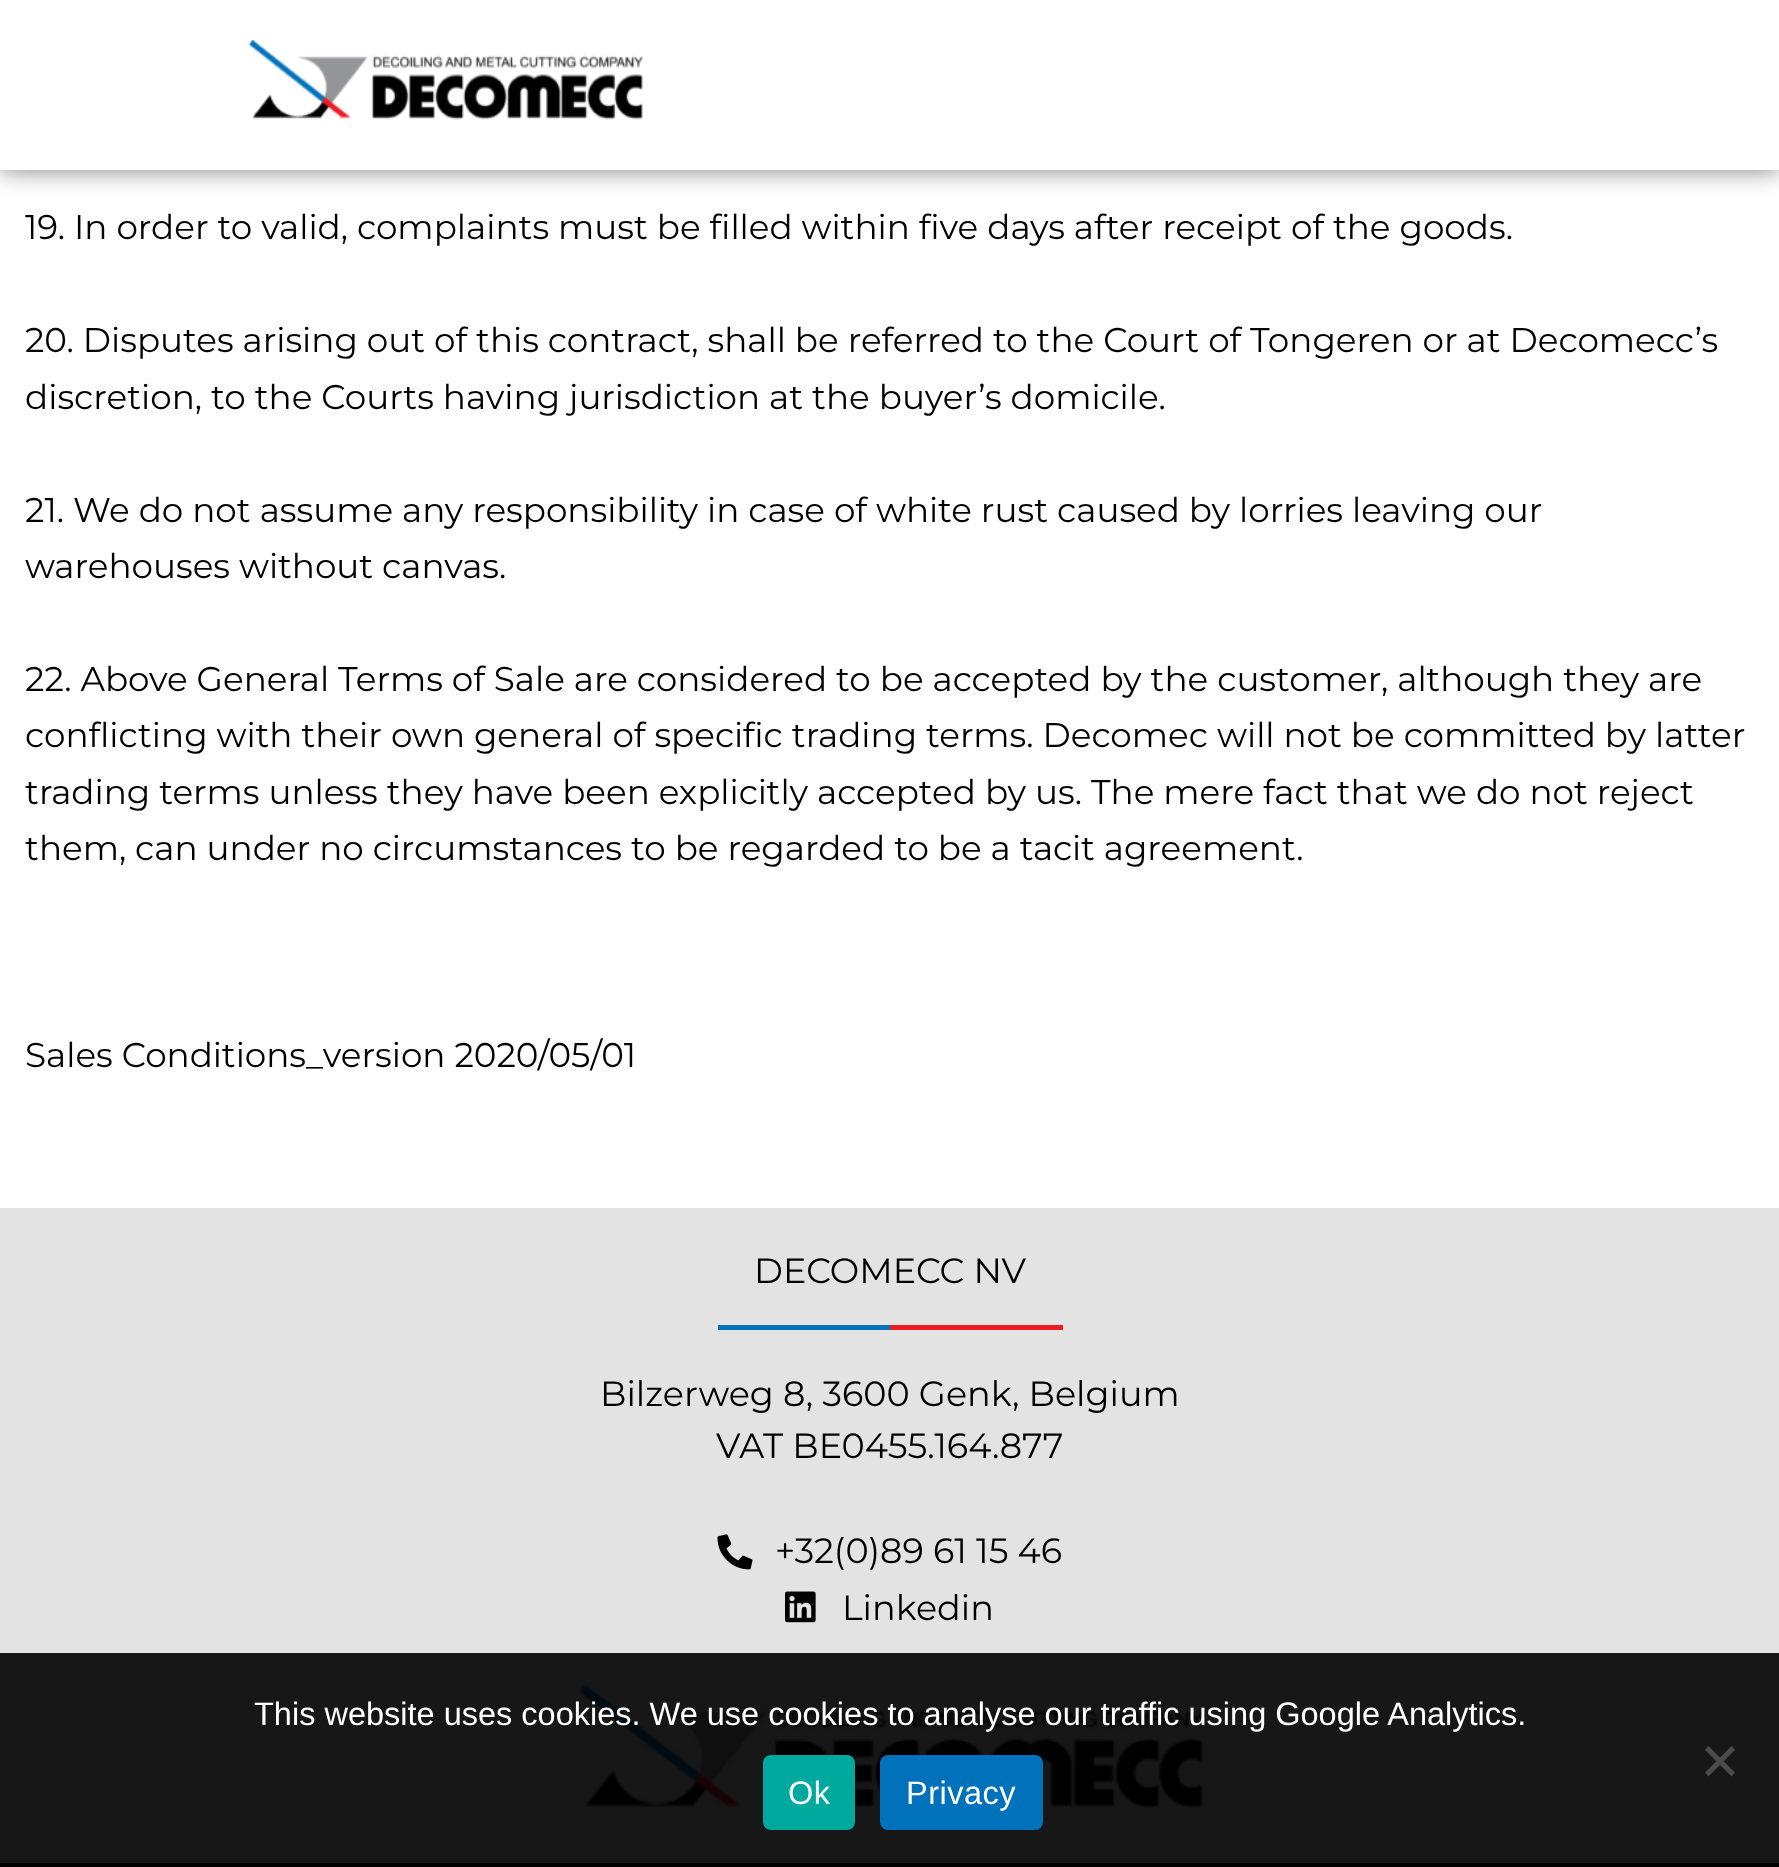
(async () => {
  const canvas = document.querySelector("canvas");
  canvas.width = 1779;
  canvas.height = 1867;
  const ctx = canvas.getContext("2d");
  ctx.miterLimit = 4;
  ctx.fontKerning = "normal";
  async function loadImage(src) {
    const img = new Image();
    img.src = src;
    await img.decode();
    return img;
  }
  let path;

  ctx.fillStyle = "#ffffff";
  ctx.fillRect(0, 0, 1779, 1867);
  ctx.fillStyle = "rgba(0, 0, 0, 0.5)";
  ctx.filter = "blur(12.5px)";
  ctx.beginPath();
  ctx.rect(0, 0, 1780, 170);
  ctx.fill();
  ctx.filter = "none";
  ctx.fillStyle = "#ffffff";
  ctx.fillRect(0, 0, 1779, 170);
  ctx.drawImage(await loadImage("img/1.png"), 248, 40, 395, 80);
  for (const [x, y, w, h, color] of [
    [0, 1208, 1779, 445, "#e3e3e3"],
    [0, 1653, 1779, 210, "#171717"],
    [718, 1325, 172, 5, "#0072bc"],
    [890, 1325, 173, 5, "#ec1c23"],
  ]) {
    ctx.fillStyle = color;
    ctx.fillRect(x, y, w, h);
  }
  ctx.drawImage(await loadImage("img/2.png"), 717, 1534, 36, 36);
  ctx.drawImage(await loadImage("img/3.png"), 785, 1591, 31, 32);
  ctx.drawImage(await loadImage("img/4.png"), 579, 1685, 624, 124);
  ctx.fillStyle = "#000000";
  ctx.fillRect(0, 1863, 1779, 4);
  ctx.fillStyle = "#4b4b4b";
  path = new Path2D("M1731.5 1746L1735 1750L1708.5 1776.5L1705 1772.5Z");
  ctx.fill(path);
  path = new Path2D("M1705 1750L1708.5 1746L1735 1772.5L1731.5 1776.5Z");
  ctx.fill(path);
  ctx.fillStyle = "#00a99d";
  ctx.beginPath();
  ctx.roundRect(763, 1755, 92, 75, 8);
  ctx.fill();
  ctx.fillStyle = "#0072bc";
  ctx.beginPath();
  ctx.roundRect(880, 1755, 163, 75, 8);
  ctx.fill();
  ctx.font = "34.2px Montserrat";
  ctx.fillStyle = "#000000";
  for (const [text, x, y] of [
    ["19. In order to valid, complaints must be filled within five days after receipt of the goods.", 25, 239],
    ["20. Disputes arising out of this contract, shall be referred to the Court of Tongeren or at Decomecc’s", 25, 352],
    ["discretion, to the Courts having jurisdiction at the buyer’s domicile.", 25, 409],
    ["21. We do not assume any responsibility in case of white rust caused by lorries leaving our", 25, 522],
    ["warehouses without canvas.", 25, 578],
    ["22. Above General Terms of Sale are considered to be accepted by the customer, although they are", 25, 691],
    ["conflicting with their own general of specific trading terms. Decomec will not be committed by latter", 25, 747],
    ["trading terms unless they have been explicitly accepted by us. The mere fact that we do not reject", 25, 804],
    ["them, can under no circumstances to be regarded to be a tacit agreement.", 25, 860],
    ["Sales Conditions_version 2020/05/01", 25, 1067],
  ]) {
    ctx.fillText(text, x, y);
  }
  ctx.font = "35px Montserrat";
  for (const [text, x, y] of [
    ["DECOMECC NV", 754, 1283],
    ["Bilzerweg 8, 3600 Genk, Belgium", 600, 1406],
    ["VAT BE0455.164.877", 716, 1458],
    ["+32(0)89 61 15 46", 775, 1563],
    ["Linkedin", 842, 1620],
  ]) {
    ctx.fillText(text, x, y);
  }
  ctx.font = "32.5px Liberation Sans";
  ctx.fillStyle = "#ffffff";
  ctx.fillText("This website uses cookies. We use cookies to analyse our traffic using Google Analytics.", 254, 1725);
  ctx.letterSpacing = "0.5px";
  ctx.fillText("Ok", 788, 1804);
  ctx.fillText("Privacy", 906, 1804);
})();
